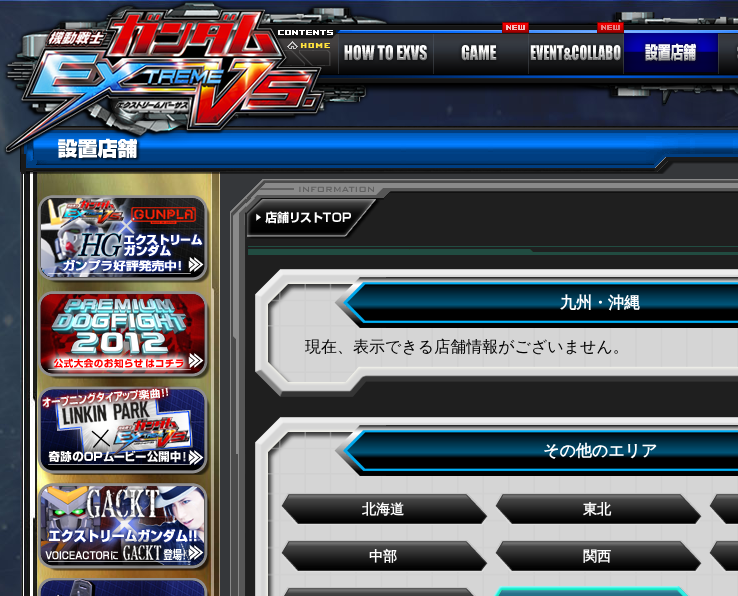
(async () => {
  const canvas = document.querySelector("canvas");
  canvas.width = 738;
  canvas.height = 596;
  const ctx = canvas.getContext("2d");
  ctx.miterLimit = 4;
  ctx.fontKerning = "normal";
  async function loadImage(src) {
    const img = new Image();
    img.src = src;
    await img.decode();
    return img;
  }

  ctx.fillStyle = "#ffffff";
  ctx.fillRect(0, 0, 738, 596);
  ctx.drawImage(await loadImage("img/1.png"), 0, 0, 738, 596);
  ctx.fillStyle = "#35373a";
  ctx.fillRect(220, 161, 518, 435);
  ctx.drawImage(await loadImage("img/9.png"), 20, 172, 200, 424);
  ctx.drawImage(await loadImage("img/7.png"), 20, 126, 718, 48);
  ctx.drawImage(await loadImage("img/8.png"), 58, 138, 83, 24);
  ctx.drawImage(await loadImage("img/2.png"), 3, 0, 735, 156);
  ctx.drawImage(await loadImage("img/3.png"), 300, 43, 30, 5);
  ctx.drawImage(await loadImage("img/4.png"), 504, 22, 25, 11);
  ctx.drawImage(await loadImage("img/5.png"), 597, 22, 27, 11);
  ctx.drawImage(await loadImage("img/6.png"), 624, 33, 94, 40);
  ctx.drawImage(await loadImage("img/10.png"), 37, 195, 174, 88);
  ctx.drawImage(await loadImage("img/11.png"), 37, 291, 174, 88);
  ctx.drawImage(await loadImage("img/12.png"), 37, 386, 174, 89);
  ctx.drawImage(await loadImage("img/13.png"), 37, 482, 174, 89);
  ctx.drawImage(await loadImage("img/14.png"), 37, 578, 173, 18);
  ctx.drawImage(await loadImage("img/15.png"), 230, 454, 25, 142);
  ctx.drawImage(await loadImage("img/16.png"), 230, 179, 508, 275);
  ctx.drawImage(await loadImage("img/17.png"), 246, 198, 138, 41);
  ctx.drawImage(await loadImage("img/18.png"), 255, 335, 483, 24);
  ctx.drawImage(await loadImage("img/19.png"), 255, 269, 483, 66);
  ctx.drawImage(await loadImage("img/20.png"), 255, 359, 483, 38);
  ctx.drawImage(await loadImage("img/21.png"), 255, 476, 483, 120);
  ctx.drawImage(await loadImage("img/22.png"), 255, 417, 483, 59);
  ctx.drawImage(await loadImage("img/23.png"), 281, 493, 207, 32);
  ctx.drawImage(await loadImage("img/24.png"), 495, 493, 207, 32);
  ctx.drawImage(await loadImage("img/25.png"), 709, 493, 29, 32);
  ctx.drawImage(await loadImage("img/26.png"), 281, 540, 207, 32);
  ctx.drawImage(await loadImage("img/27.png"), 495, 540, 207, 32);
  ctx.drawImage(await loadImage("img/28.png"), 709, 540, 29, 32);
  ctx.drawImage(await loadImage("img/29.png"), 282, 587, 194, 9);
  ctx.drawImage(await loadImage("img/30.png"), 493, 586, 197, 10);
  ctx.font = "bold 16px WenQuanYi Zen Hei";
  ctx.fillStyle = "#ffffff";
  ctx.fillText("九州・沖縄", 560, 308);
  ctx.font = "500 16px WenQuanYi Zen Hei";
  ctx.fillStyle = "#000000";
  ctx.fillText("現在、表示できる店舗情報がございません。", 305, 352);
  ctx.font = "bold 16px WenQuanYi Zen Hei";
  ctx.fillStyle = "#ffffff";
  ctx.fillText("その他のエリア", 543, 456);
  ctx.font = "bold 14px WenQuanYi Zen Hei";
  for (const [text, x, y] of [
    ["北海道", 362, 514],
    ["東北", 583, 514],
    ["中部", 369, 561],
    ["関西", 583, 561],
  ]) {
    ctx.fillText(text, x, y);
  }
})();
